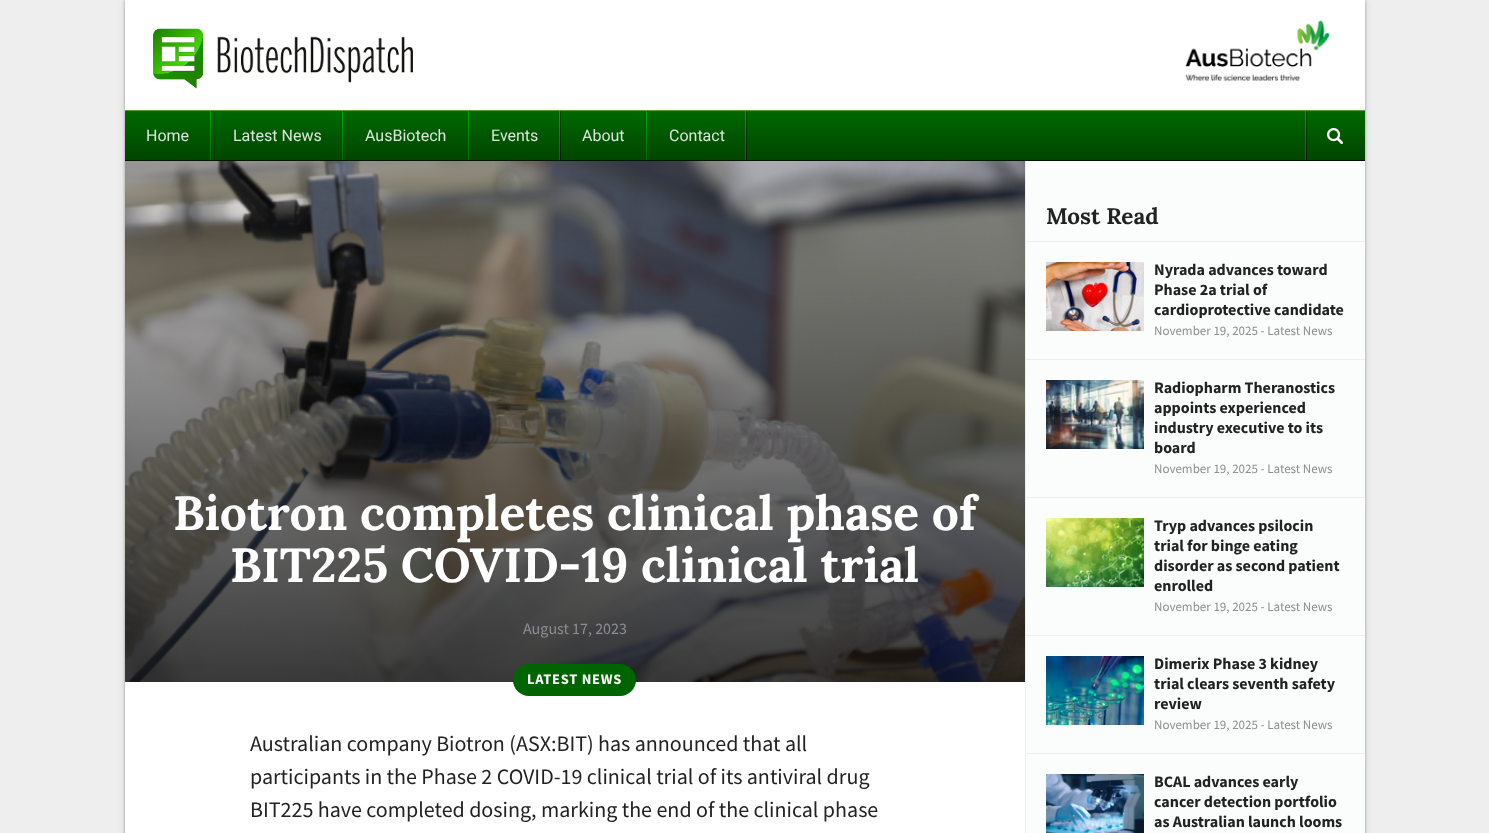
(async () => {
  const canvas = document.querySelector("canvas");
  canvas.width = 1489;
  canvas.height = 833;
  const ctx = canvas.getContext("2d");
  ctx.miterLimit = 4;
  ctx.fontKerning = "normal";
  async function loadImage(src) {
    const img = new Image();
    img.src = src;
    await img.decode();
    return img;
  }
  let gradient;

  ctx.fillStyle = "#efeeee";
  ctx.fillRect(0, 0, 1489, 833);
  ctx.fillStyle = "rgba(0, 0, 0, 0.1)";
  ctx.filter = "blur(4px)";
  ctx.beginPath();
  ctx.rect(125, 0, 1240, 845);
  ctx.fill();
  ctx.filter = "none";
  ctx.fillStyle = "rgba(0, 0, 0, 0.3)";
  ctx.filter = "blur(1.5px)";
  ctx.beginPath();
  ctx.rect(125, 0, 1240, 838);
  ctx.fill();
  ctx.filter = "none";
  ctx.fillStyle = "#ffffff";
  ctx.fillRect(125, 0, 1240, 833);
  ctx.drawImage(await loadImage("img/1.png"), 153, 28, 260, 61);
  ctx.drawImage(await loadImage("img/2.png"), 1185, 20, 145, 62);
  gradient = ctx.createLinearGradient(745, 111, 745, 160);
  gradient.addColorStop(0, "#006900");
  gradient.addColorStop(1, "#004500");
  ctx.fillStyle = gradient;
  ctx.fillRect(125, 111, 1240, 49);
  ctx.fillStyle = "#549f2d";
  ctx.fillRect(125, 110, 1240, 1);
  ctx.fillStyle = "#001800";
  ctx.fillRect(125, 160, 1240, 1);
  gradient = ctx.createLinearGradient(211, 111, 211, 160);
  gradient.addColorStop(0, "#00aa00");
  gradient.addColorStop(1, "#006e00");
  ctx.fillStyle = gradient;
  ctx.fillRect(210, 111, 1, 49);
  gradient = ctx.createLinearGradient(212, 111, 212, 160);
  gradient.addColorStop(0, "#004b00");
  gradient.addColorStop(1, "#001800");
  ctx.fillStyle = gradient;
  ctx.fillRect(211, 111, 1, 49);
  gradient = ctx.createLinearGradient(343, 111, 343, 160);
  gradient.addColorStop(0, "#00aa00");
  gradient.addColorStop(1, "#006e00");
  ctx.fillStyle = gradient;
  ctx.fillRect(342, 111, 1, 49);
  gradient = ctx.createLinearGradient(344, 111, 344, 160);
  gradient.addColorStop(0, "#004b00");
  gradient.addColorStop(1, "#001800");
  ctx.fillStyle = gradient;
  ctx.fillRect(343, 111, 1, 49);
  gradient = ctx.createLinearGradient(469, 111, 469, 160);
  gradient.addColorStop(0, "#00aa00");
  gradient.addColorStop(1, "#006e00");
  ctx.fillStyle = gradient;
  ctx.fillRect(468, 111, 1, 49);
  gradient = ctx.createLinearGradient(470, 111, 470, 160);
  gradient.addColorStop(0, "#004b00");
  gradient.addColorStop(1, "#001800");
  ctx.fillStyle = gradient;
  ctx.fillRect(469, 111, 1, 49);
  gradient = ctx.createLinearGradient(560, 111, 560, 160);
  gradient.addColorStop(0, "#00aa00");
  gradient.addColorStop(1, "#006e00");
  ctx.fillStyle = gradient;
  ctx.fillRect(559, 111, 1, 49);
  gradient = ctx.createLinearGradient(561, 111, 561, 160);
  gradient.addColorStop(0, "#004b00");
  gradient.addColorStop(1, "#001800");
  ctx.fillStyle = gradient;
  ctx.fillRect(560, 111, 1, 49);
  gradient = ctx.createLinearGradient(647, 111, 647, 160);
  gradient.addColorStop(0, "#00aa00");
  gradient.addColorStop(1, "#006e00");
  ctx.fillStyle = gradient;
  ctx.fillRect(646, 111, 1, 49);
  gradient = ctx.createLinearGradient(648, 111, 648, 160);
  gradient.addColorStop(0, "#004b00");
  gradient.addColorStop(1, "#001800");
  ctx.fillStyle = gradient;
  ctx.fillRect(647, 111, 1, 49);
  gradient = ctx.createLinearGradient(746, 111, 746, 160);
  gradient.addColorStop(0, "#00aa00");
  gradient.addColorStop(1, "#006e00");
  ctx.fillStyle = gradient;
  ctx.fillRect(745, 111, 1, 49);
  gradient = ctx.createLinearGradient(747, 111, 747, 160);
  gradient.addColorStop(0, "#004b00");
  gradient.addColorStop(1, "#001800");
  ctx.fillStyle = gradient;
  ctx.fillRect(746, 111, 1, 49);
  gradient = ctx.createLinearGradient(1306, 111, 1306, 160);
  gradient.addColorStop(0, "#00aa00");
  gradient.addColorStop(1, "#006e00");
  ctx.fillStyle = gradient;
  ctx.fillRect(1305, 111, 1, 49);
  gradient = ctx.createLinearGradient(1307, 111, 1307, 160);
  gradient.addColorStop(0, "#004b00");
  gradient.addColorStop(1, "#001800");
  ctx.fillStyle = gradient;
  ctx.fillRect(1306, 111, 1, 49);
  ctx.drawImage(await loadImage("img/3.png"), 1327, 128, 16, 16);
  ctx.drawImage(await loadImage("img/4.png"), 125, 161, 900, 521);
  ctx.fillStyle = "#006400";
  ctx.beginPath();
  ctx.roundRect(513, 664, 123, 32, 16);
  ctx.fill();
  for (const [x, y, w, h, color] of [
    [1026, 161, 339, 672, "#fbfcfc"],
    [1025, 161, 1, 672, "#eeeeee"],
    [1026, 241, 339, 1, "#eeeeee"],
    [1026, 359, 339, 1, "#eeeeee"],
  ]) {
    ctx.fillStyle = color;
    ctx.fillRect(x, y, w, h);
  }
  ctx.drawImage(await loadImage("img/5.png"), 1046, 262, 98, 69);
  ctx.fillRect(1026, 497, 339, 1);
  ctx.drawImage(await loadImage("img/6.png"), 1046, 380, 98, 69);
  ctx.fillRect(1026, 635, 339, 1);
  ctx.drawImage(await loadImage("img/7.png"), 1046, 518, 98, 69);
  ctx.fillRect(1026, 753, 339, 1);
  ctx.drawImage(await loadImage("img/8.png"), 1046, 656, 98, 69);
  ctx.drawImage(await loadImage("img/9.png"), 1046, 774, 98, 59);
  ctx.font = "16px Roboto";
  ctx.fillStyle = "#d9e6d9";
  for (const [text, x, y] of [
    ["Home", 146, 141],
    ["Latest News", 233, 141],
    ["AusBiotech", 365, 141],
    ["Events", 491, 141],
    ["About", 582, 141],
    ["Contact", 669, 141],
  ]) {
    ctx.fillText(text, x, y);
  }
  ctx.font = "bold 48px Lora";
  ctx.fillStyle = "#ffffff";
  ctx.fillText("Biotron completes clinical phase of", 173, 530);
  ctx.fillText("BIT225 COVID-19 clinical trial", 230, 582);
  ctx.font = "16px Source Sans Pro";
  ctx.fillStyle = "#8e8e93";
  ctx.fillText("August 17, 2023", 523, 634);
  ctx.letterSpacing = "0.75px";
  ctx.font = "bold 14.5px Source Sans Pro";
  ctx.fillStyle = "#ffffff";
  ctx.fillText("LATEST NEWS", 527, 684);
  ctx.letterSpacing = "0px";
  ctx.font = "22px Source Sans Pro";
  ctx.fillStyle = "#222222";
  for (const [text, x, y] of [
    ["Australian company Biotron (ASX:BIT) has announced that all", 250, 751],
    ["participants in the Phase 2 COVID-19 clinical trial of its antiviral drug", 250, 784],
    ["BIT225 have completed dosing, marking the end of the clinical phase", 250, 817],
  ]) {
    ctx.fillText(text, x, y);
  }
  ctx.font = "bold 22.5px Lora";
  ctx.fillText("Most Read", 1046, 224);
  ctx.font = "bold 16px Source Sans Pro";
  for (const [text, x, y] of [
    ["Nyrada advances toward", 1154, 275],
    ["Phase 2a trial of", 1154, 295],
    ["cardioprotective candidate", 1154, 315],
  ]) {
    ctx.fillText(text, x, y);
  }
  ctx.font = "13px Source Sans Pro";
  ctx.fillStyle = "#8e8e93";
  ctx.fillText("November 19, 2025 - Latest News", 1154, 335);
  ctx.font = "bold 16px Source Sans Pro";
  ctx.fillStyle = "#222222";
  for (const [text, x, y] of [
    ["Radiopharm Theranostics", 1154, 393],
    ["appoints experienced", 1154, 413],
    ["industry executive to its", 1154, 433],
    ["board", 1154, 453],
  ]) {
    ctx.fillText(text, x, y);
  }
  ctx.font = "13px Source Sans Pro";
  ctx.fillStyle = "#8e8e93";
  ctx.fillText("November 19, 2025 - Latest News", 1154, 473);
  ctx.font = "bold 16px Source Sans Pro";
  ctx.fillStyle = "#222222";
  for (const [text, x, y] of [
    ["Tryp advances psilocin", 1154, 531],
    ["trial for binge eating", 1154, 551],
    ["disorder as second patient", 1154, 571],
    ["enrolled", 1154, 591],
  ]) {
    ctx.fillText(text, x, y);
  }
  ctx.font = "13px Source Sans Pro";
  ctx.fillStyle = "#8e8e93";
  ctx.fillText("November 19, 2025 - Latest News", 1154, 611);
  ctx.font = "bold 16px Source Sans Pro";
  ctx.fillStyle = "#222222";
  for (const [text, x, y] of [
    ["Dimerix Phase 3 kidney", 1154, 669],
    ["trial clears seventh safety", 1154, 689],
    ["review", 1154, 709],
  ]) {
    ctx.fillText(text, x, y);
  }
  ctx.font = "13px Source Sans Pro";
  ctx.fillStyle = "#8e8e93";
  ctx.fillText("November 19, 2025 - Latest News", 1154, 729);
  ctx.font = "bold 16px Source Sans Pro";
  ctx.fillStyle = "#222222";
  for (const [text, x, y] of [
    ["BCAL advances early", 1154, 787],
    ["cancer detection portfolio", 1154, 807],
    ["as Australian launch looms", 1154, 827],
  ]) {
    ctx.fillText(text, x, y);
  }
})();
